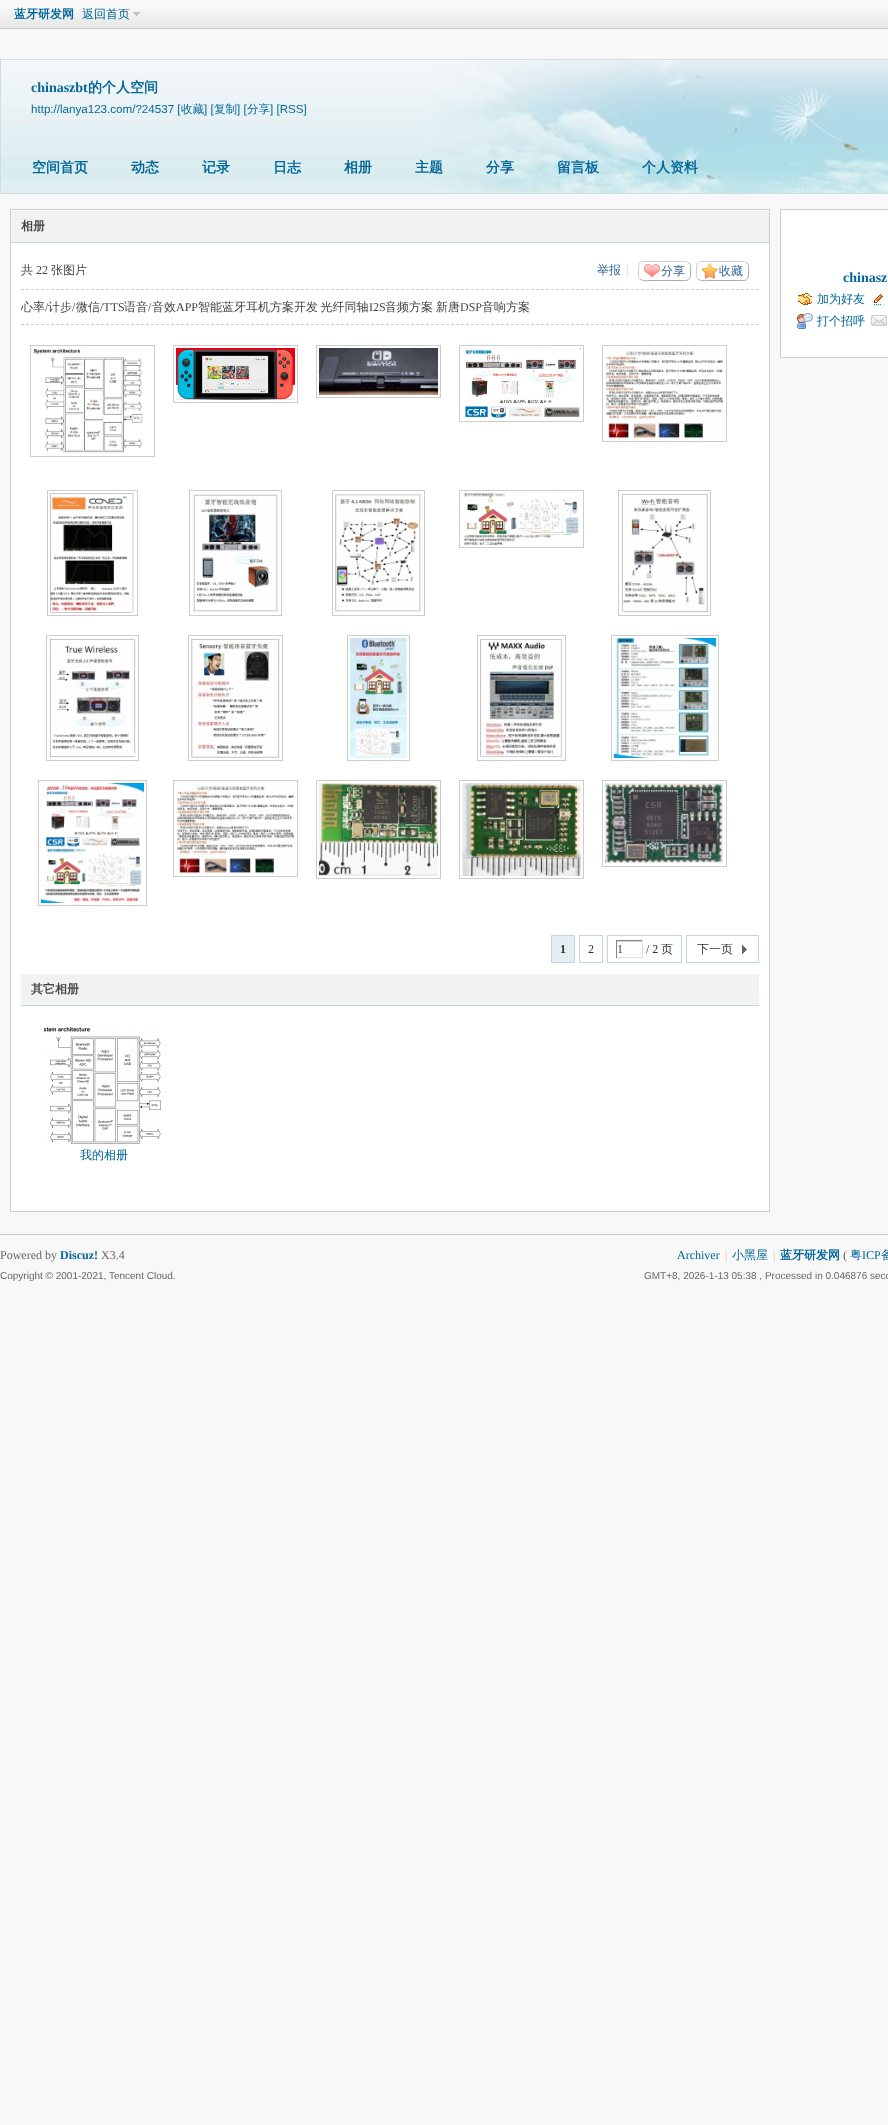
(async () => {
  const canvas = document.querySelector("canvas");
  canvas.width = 888;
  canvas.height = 2125;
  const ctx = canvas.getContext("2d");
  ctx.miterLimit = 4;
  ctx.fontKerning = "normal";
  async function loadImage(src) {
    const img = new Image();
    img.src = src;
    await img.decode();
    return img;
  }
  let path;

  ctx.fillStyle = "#f8f8f8";
  ctx.fillRect(0, 0, 888, 2125);
  ctx.drawImage(await loadImage("img/1.png"), 0, 10, 888, 18);
  ctx.fillStyle = "#cdcdcd";
  ctx.fillRect(0, 28, 888, 1);
  ctx.drawImage(await loadImage("img/2.png"), 133, 12, 7, 4);
  ctx.drawImage(await loadImage("img/3.png"), 1, 60, 887, 133);
  ctx.strokeStyle = "#d3dfdf";
  ctx.strokeRect(0.5, 59.5, 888, 134);
  ctx.fillStyle = "#ffffff";
  ctx.fillRect(11, 243, 758, 968);
  ctx.strokeStyle = "#cdcdcd";
  ctx.strokeRect(10.5, 209.5, 759, 1002);
  for (const [x, y, w, h, color] of [
    [11, 211, 758, 31, "#f2f2f2"],
    [11, 210, 758, 1, "#ffffff"],
    [11, 242, 758, 1, "#c2d5e3"],
  ]) {
    ctx.fillStyle = color;
    ctx.fillRect(x, y, w, h);
  }
  path = new Path2D("M21 289.5H759");
  ctx.setLineDash([3, 2]);
  ctx.stroke(path);
  ctx.drawImage(await loadImage("img/4.png"), 644, 264, 16, 14);
  path = new Path2D("M689 263C691.5 265 690.5 268.5 690.5 271C690.5 281.5 689.5 280.5 679 280.5H650C648 280.5 642.5 281.5 640 279");
  ctx.strokeStyle = "#a9a9a9";
  ctx.setLineDash([]);
  ctx.stroke(path);
  path = new Path2D("M640 279C637.5 277 638.5 273.5 638.5 271C638.5 260.5 639.5 261.5 650 261.5H679C681 261.5 686.5 260.5 689 263");
  ctx.strokeStyle = "#cccccc";
  ctx.stroke(path);
  ctx.drawImage(await loadImage("img/5.png"), 702, 263, 16, 16);
  path = new Path2D("M747 263C749.5 265 748.5 268.5 748.5 271C748.5 281.5 747.5 280.5 737 280.5H708C706 280.5 700.5 281.5 698 279");
  ctx.strokeStyle = "#a9a9a9";
  ctx.stroke(path);
  path = new Path2D("M698 279C695.5 277 696.5 273.5 696.5 271C696.5 260.5 697.5 261.5 708 261.5H737C739 261.5 744.5 260.5 747 263");
  ctx.strokeStyle = "#cccccc";
  ctx.stroke(path);
  path = new Path2D("M21 324.5H759");
  ctx.strokeStyle = "#cdcdcd";
  ctx.setLineDash([3, 2]);
  ctx.stroke(path);
  ctx.strokeStyle = "#cccccc";
  ctx.setLineDash([]);
  ctx.strokeRect(30.5, 345.5, 124, 111);
  ctx.drawImage(await loadImage("img/6.png"), 33, 349, 110, 104);
  ctx.strokeRect(173.5, 345.5, 124, 57);
  ctx.drawImage(await loadImage("img/7.png"), 176, 348, 119, 52);
  ctx.strokeRect(316.5, 345.5, 124, 52);
  ctx.drawImage(await loadImage("img/8.png"), 319, 348, 119, 47);
  ctx.strokeRect(459.5, 345.5, 124, 76);
  ctx.drawImage(await loadImage("img/9.png"), 463, 348, 118, 71);
  ctx.strokeRect(602.5, 345.5, 124, 96);
  ctx.drawImage(await loadImage("img/10.png"), 605, 351, 119, 88);
  ctx.strokeRect(47.5, 490.5, 90, 125);
  ctx.drawImage(await loadImage("img/11.png"), 50, 493, 84, 120);
  ctx.strokeRect(189.5, 490.5, 92, 125);
  ctx.drawImage(await loadImage("img/12.png"), 193, 494, 85, 118);
  ctx.strokeRect(332.5, 490.5, 92, 125);
  ctx.drawImage(await loadImage("img/13.png"), 335, 493, 86, 119);
  ctx.strokeRect(459.5, 490.5, 124, 57);
  ctx.drawImage(await loadImage("img/14.png"), 463, 493, 116, 52);
  ctx.strokeRect(618.5, 490.5, 92, 125);
  ctx.drawImage(await loadImage("img/15.png"), 621, 493, 87, 120);
  ctx.strokeRect(46.5, 635.5, 92, 125);
  ctx.drawImage(await loadImage("img/16.png"), 49, 638, 87, 120);
  ctx.strokeRect(188.5, 635.5, 94, 125);
  ctx.drawImage(await loadImage("img/17.png"), 191, 638, 89, 120);
  ctx.strokeRect(347.5, 635.5, 62, 125);
  ctx.drawImage(await loadImage("img/18.png"), 350, 638, 57, 120);
  ctx.strokeRect(477.5, 635.5, 88, 125);
  ctx.drawImage(await loadImage("img/19.png"), 480, 638, 83, 120);
  ctx.strokeRect(611.5, 635.5, 107, 125);
  ctx.drawImage(await loadImage("img/20.png"), 614, 638, 102, 120);
  ctx.strokeRect(38.5, 780.5, 108, 125);
  ctx.drawImage(await loadImage("img/21.png"), 41, 783, 103, 120);
  ctx.strokeRect(173.5, 780.5, 124, 96);
  ctx.drawImage(await loadImage("img/10.png"), 176, 786, 119, 88);
  ctx.strokeRect(316.5, 780.5, 124, 98);
  ctx.drawImage(await loadImage("img/22.png"), 319, 783, 119, 93);
  ctx.strokeRect(459.5, 780.5, 124, 98);
  ctx.drawImage(await loadImage("img/23.png"), 462, 783, 119, 93);
  ctx.strokeRect(602.5, 780.5, 124, 86);
  ctx.drawImage(await loadImage("img/24.png"), 605, 783, 119, 81);
  ctx.fillStyle = "#e5edf2";
  ctx.beginPath();
  ctx.rect(551.5, 935.5, 23, 27);
  ctx.fill();
  ctx.strokeStyle = "#c2d5e3";
  ctx.stroke();
  ctx.strokeRect(579.5, 935.5, 23, 27);
  ctx.strokeRect(607.5, 935.5, 74, 27);
  for (const [x, y, w, h, color] of [
    [616, 941, 27, 1, "#d4d4d4"],
    [616, 940, 27, 1, "#848484"],
    [642, 940, 1, 18, "#e0e0e0"],
    [616, 957, 27, 1, "#e0e0e0"],
    [616, 940, 1, 18, "#848484"],
  ]) {
    ctx.fillStyle = color;
    ctx.fillRect(x, y, w, h);
  }
  ctx.drawImage(await loadImage("img/25.png"), 742, 945, 5, 9);
  ctx.strokeRect(686.5, 935.5, 72, 27);
  ctx.fillStyle = "#f2f2f2";
  ctx.fillRect(21, 974, 738, 31);
  ctx.fillStyle = "#c2d5e3";
  ctx.fillRect(21, 1005, 738, 1);
  ctx.drawImage(await loadImage("img/26.png"), 44, 1027, 117, 117);
  ctx.fillStyle = "#ffffff";
  ctx.beginPath();
  ctx.rect(780.5, 209.5, 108, 148);
  ctx.fill();
  ctx.strokeStyle = "#cdcdcd";
  ctx.stroke();
  ctx.drawImage(await loadImage("img/27.png"), 798, 293, 14, 12);
  ctx.drawImage(await loadImage("img/28.png"), 874, 294, 11, 12);
  ctx.drawImage(await loadImage("img/29.png"), 797, 313, 16, 16);
  ctx.drawImage(await loadImage("img/30.png"), 871, 315, 16, 11);
  ctx.fillStyle = "#cccccc";
  ctx.fillRect(0, 1234, 888, 1);
  ctx.font = "bold 12px WenQuanYi Zen Hei";
  ctx.fillStyle = "#006699";
  ctx.fillText("蓝牙研发网", 14, 18);
  ctx.font = "500 12px WenQuanYi Zen Hei";
  ctx.fillText("返回首页", 82, 18);
  ctx.font = "bold 14px Liberation Serif";
  ctx.fillText("chinaszbt", 31, 92);
  ctx.font = "bold 14px WenQuanYi Zen Hei";
  ctx.fillText("的个人空间", 88, 92);
  ctx.font = "11.6px Liberation Sans";
  ctx.fillText("http://lanya123.com/?24537 [", 31, 113);
  ctx.font = "500 11.6px WenQuanYi Zen Hei";
  ctx.fillText("收藏", 181, 113);
  ctx.font = "11.6px Liberation Sans";
  ctx.fillText("] [", 204, 113);
  ctx.font = "500 11.6px WenQuanYi Zen Hei";
  ctx.fillText("复制", 214, 113);
  ctx.font = "11.6px Liberation Sans";
  ctx.fillText("] [", 237, 113);
  ctx.font = "500 11.6px WenQuanYi Zen Hei";
  ctx.fillText("分享", 247, 113);
  ctx.font = "11.6px Liberation Sans";
  ctx.fillText("] [RSS]", 270, 113);
  ctx.font = "bold 14px WenQuanYi Zen Hei";
  for (const [text, x, y] of [
    ["空间首页", 32, 172],
    ["动态", 131, 172],
    ["记录", 202, 172],
    ["日志", 273, 172],
    ["相册", 344, 172],
    ["主题", 415, 172],
    ["分享", 486, 172],
    ["留言板", 557, 172],
    ["个人资料", 642, 172],
  ]) {
    ctx.fillText(text, x, y);
  }
  ctx.font = "bold 12px WenQuanYi Zen Hei";
  ctx.fillStyle = "#444444";
  ctx.fillText("相册", 21, 230);
  ctx.font = "500 12px WenQuanYi Zen Hei";
  ctx.fillText("共", 21, 274);
  ctx.font = "12px Liberation Serif";
  ctx.fillText("22", 36, 274);
  ctx.font = "500 12px WenQuanYi Zen Hei";
  ctx.fillText("张图片", 51, 274);
  ctx.fillStyle = "#336699";
  ctx.fillText("举报", 597, 274);
  ctx.font = "12px Liberation Serif";
  ctx.fillStyle = "#cccccc";
  ctx.fillText("|", 626, 274);
  ctx.font = "500 12px WenQuanYi Zen Hei";
  ctx.fillStyle = "#336699";
  ctx.fillText("分享", 661, 275);
  ctx.fillText("收藏", 719, 275);
  ctx.fillStyle = "#444444";
  ctx.fillText("心率", 21, 311);
  ctx.font = "12px Liberation Serif";
  ctx.fillText("/", 45, 311);
  ctx.font = "500 12px WenQuanYi Zen Hei";
  ctx.fillText("计步", 48, 311);
  ctx.font = "12px Liberation Serif";
  ctx.fillText("/", 72, 311);
  ctx.font = "500 12px WenQuanYi Zen Hei";
  ctx.fillText("微信", 76, 311);
  ctx.font = "12px Liberation Serif";
  ctx.fillText("/TTS", 100, 311);
  ctx.font = "500 12px WenQuanYi Zen Hei";
  ctx.fillText("语音", 124, 311);
  ctx.font = "12px Liberation Serif";
  ctx.fillText("/", 148, 311);
  ctx.font = "500 12px WenQuanYi Zen Hei";
  ctx.fillText("音效", 152, 311);
  ctx.font = "12px Liberation Serif";
  ctx.fillText("APP", 176, 311);
  ctx.wordSpacing = "-1px";
  ctx.font = "500 12px WenQuanYi Zen Hei";
  ctx.fillText("智能蓝牙耳机方案开发 光纤同轴", 198, 311);
  ctx.wordSpacing = "0px";
  ctx.font = "12px Liberation Serif";
  ctx.fillText("I2S", 369, 311);
  ctx.font = "500 12px WenQuanYi Zen Hei";
  ctx.fillText("音频方案", 385, 311);
  ctx.fillText("新唐", 436, 311);
  ctx.font = "12px Liberation Serif";
  ctx.fillText("DSP", 460, 311);
  ctx.font = "500 12px WenQuanYi Zen Hei";
  ctx.fillText("音响方案", 482, 311);
  ctx.font = "bold 12px Liberation Serif";
  ctx.fillStyle = "#333333";
  ctx.fillText("1", 560, 953);
  ctx.font = "12px Liberation Serif";
  ctx.fillText("2", 588, 953);
  ctx.fillStyle = "#444444";
  ctx.fillText("1", 617, 953);
  ctx.fillStyle = "#333333";
  ctx.fillText("/ 2", 646, 953);
  ctx.font = "500 12px WenQuanYi Zen Hei";
  ctx.fillText("页", 661, 953);
  ctx.fillText("下一页", 697, 953);
  ctx.font = "bold 12px WenQuanYi Zen Hei";
  ctx.fillStyle = "#444444";
  ctx.fillText("其它相册", 31, 993);
  ctx.font = "500 12px WenQuanYi Zen Hei";
  ctx.fillStyle = "#006699";
  ctx.fillText("我的相册", 80, 1159);
  ctx.font = "bold 14px Liberation Serif";
  ctx.fillText("chinasz", 843, 282);
  ctx.font = "500 12px WenQuanYi Zen Hei";
  ctx.fillText("加为好友", 817, 303);
  ctx.fillText("打个招呼", 817, 325);
  ctx.font = "12px Liberation Serif";
  ctx.fillStyle = "#666666";
  ctx.fillText("Powered by", 0, 1259);
  ctx.font = "bold 12px Liberation Serif";
  ctx.fillStyle = "#006699";
  ctx.fillText("Discuz!", 60, 1259);
  ctx.font = "12px Liberation Serif";
  ctx.fillStyle = "#666666";
  ctx.fillText("X3.4", 101, 1259);
  ctx.font = "10px Liberation Sans";
  ctx.fillText("Copyright © 2001-2021, Tencent Cloud.", 0, 1279);
  ctx.font = "12px Liberation Serif";
  ctx.fillStyle = "#006699";
  ctx.fillText("Archiver", 677, 1259);
  ctx.fillStyle = "#cccccc";
  ctx.fillText("|", 725, 1259);
  ctx.font = "500 12px WenQuanYi Zen Hei";
  ctx.fillStyle = "#006699";
  ctx.fillText("小黑屋", 732, 1259);
  ctx.font = "12px Liberation Serif";
  ctx.fillStyle = "#cccccc";
  ctx.fillText("|", 773, 1259);
  ctx.font = "bold 12px WenQuanYi Zen Hei";
  ctx.fillStyle = "#006699";
  ctx.fillText("蓝牙研发网", 780, 1259);
  ctx.font = "12px Liberation Serif";
  ctx.fillStyle = "#666666";
  ctx.fillText("(", 843, 1259);
  ctx.font = "500 12px WenQuanYi Zen Hei";
  ctx.fillStyle = "#006699";
  ctx.fillText("粤", 850, 1259);
  ctx.font = "12px Liberation Serif";
  ctx.fillText("ICP", 862, 1259);
  ctx.font = "500 12px WenQuanYi Zen Hei";
  ctx.fillText("备", 881, 1259);
  ctx.font = "10px Liberation Sans";
  ctx.fillStyle = "#666666";
  ctx.fillText("GMT+8, 2026-1-13 05:38 , Processed in 0.046876 seco", 644, 1279);
})();
